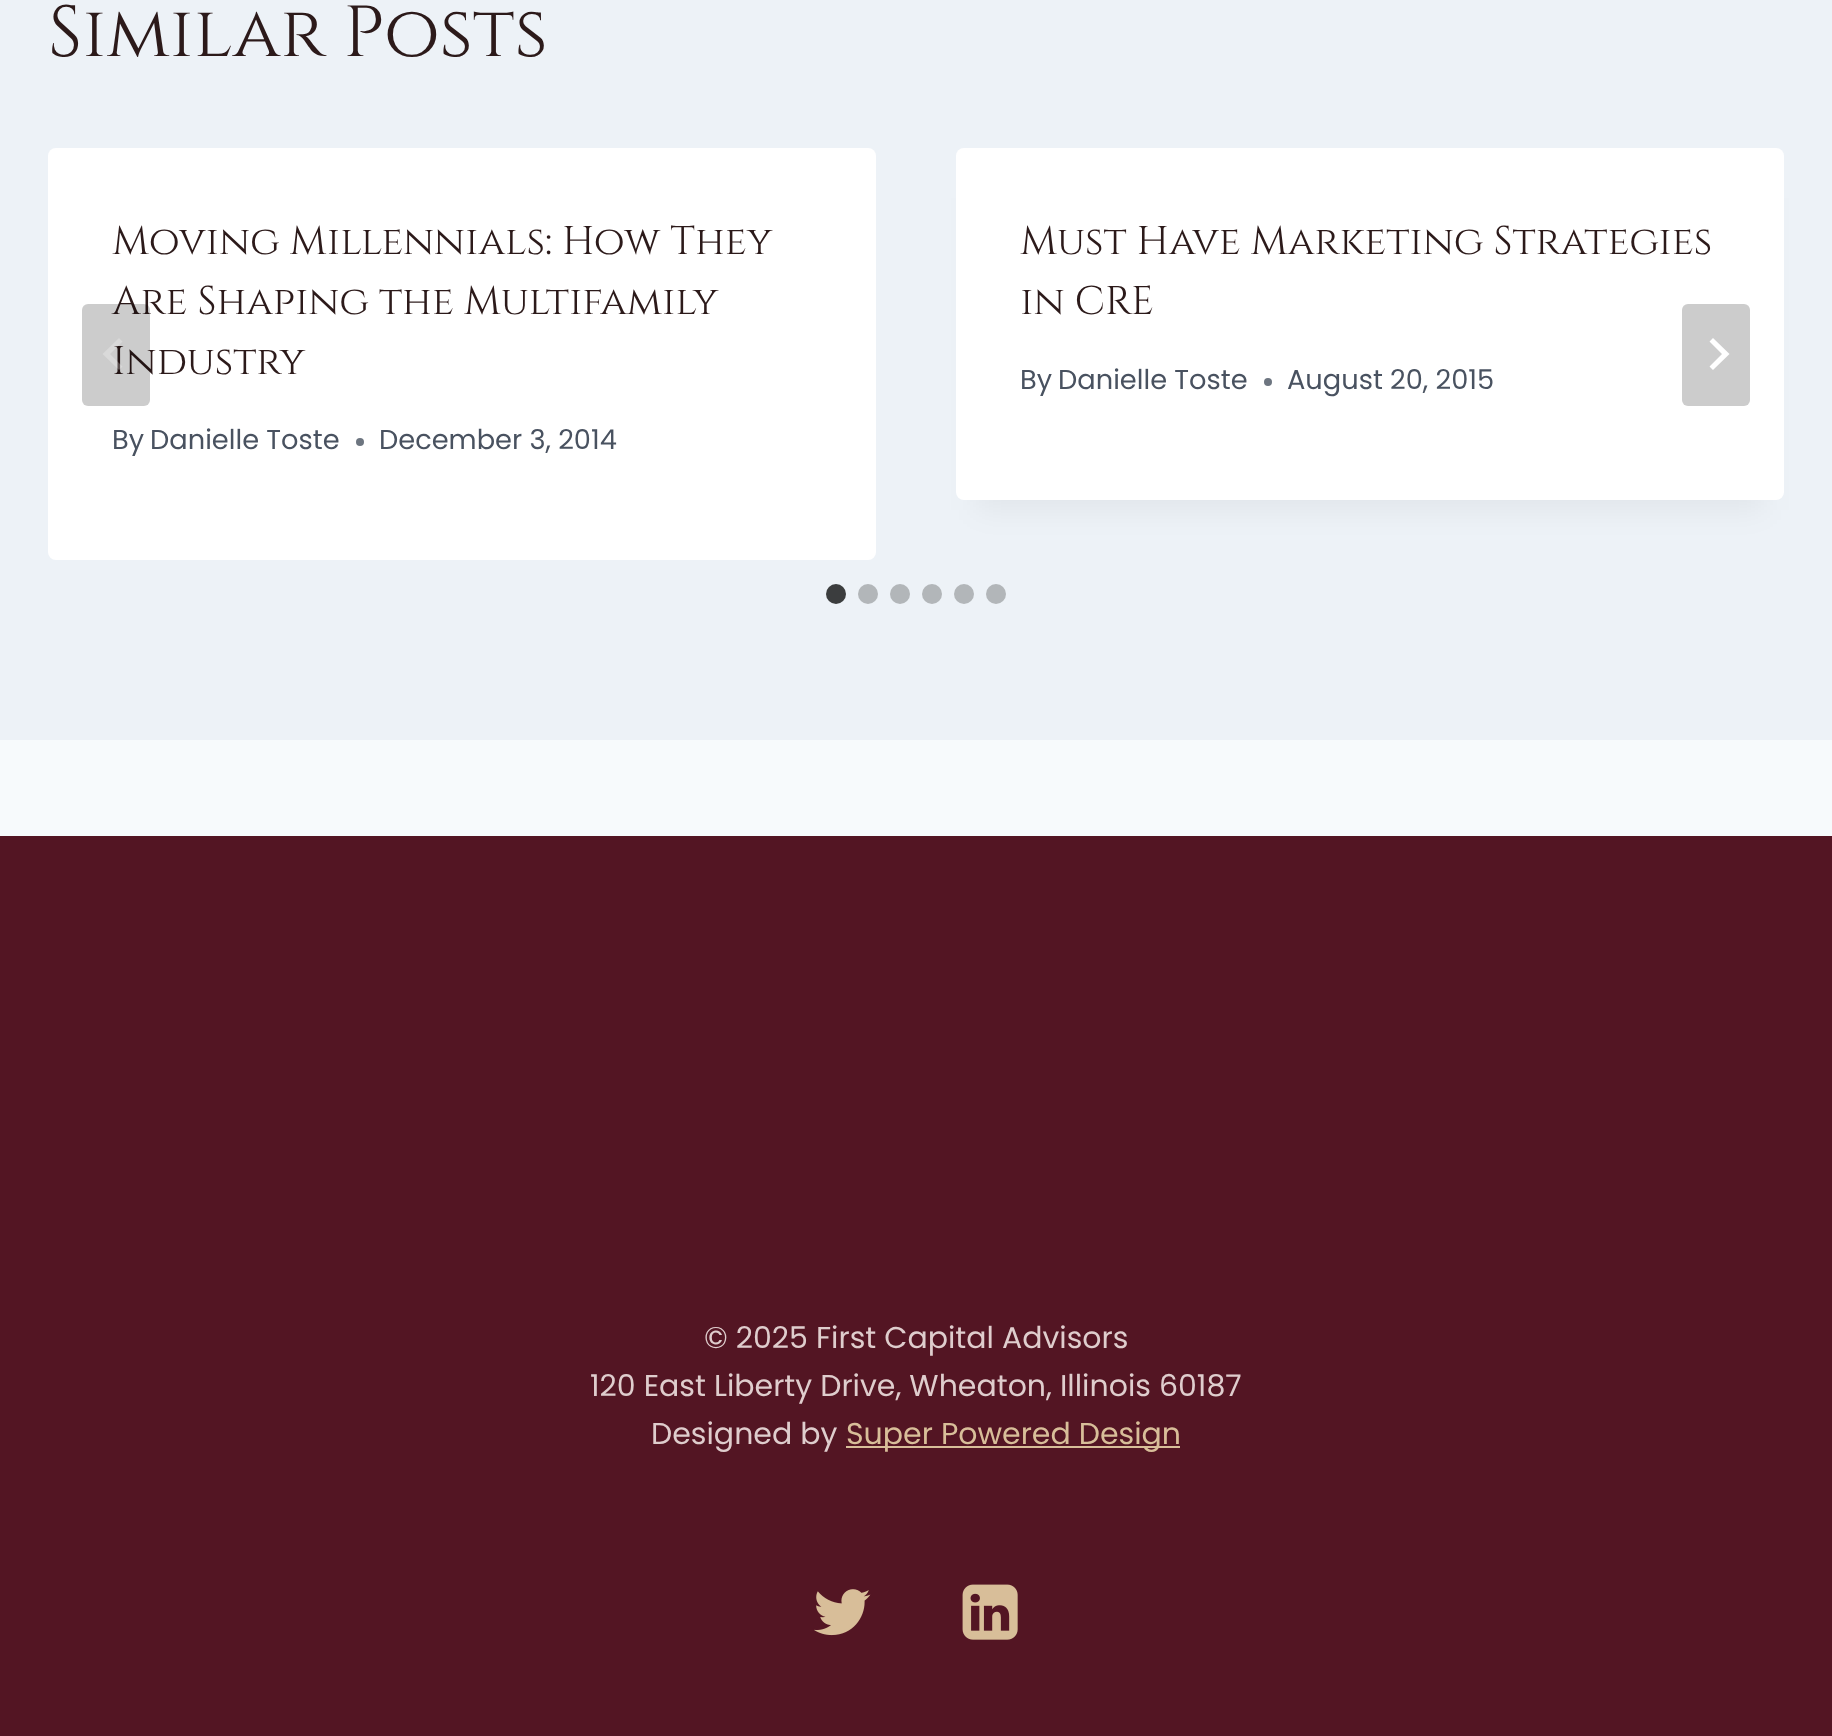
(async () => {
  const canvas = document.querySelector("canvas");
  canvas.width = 1832;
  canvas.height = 1736;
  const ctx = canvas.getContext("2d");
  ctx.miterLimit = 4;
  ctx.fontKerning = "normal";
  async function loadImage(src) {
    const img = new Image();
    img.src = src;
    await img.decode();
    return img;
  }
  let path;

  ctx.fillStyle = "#f7fafc";
  ctx.fillRect(0, 0, 1832, 1736);
  ctx.fillStyle = "#edf2f7";
  ctx.fillRect(0, 0, 1832, 740);
  ctx.fillStyle = "#ffffff";
  ctx.beginPath();
  ctx.roundRect(48, 148, 828, 412, 8);
  ctx.fill();
  ctx.fillStyle = "#6d7580";
  ctx.beginPath();
  ctx.arc(360, 442, 4, 0, Math.PI * 2);
  ctx.fill();
  ctx.fillStyle = "rgba(0, 0, 0, 0.05)";
  ctx.filter = "blur(15px)";
  ctx.beginPath();
  ctx.rect(976, 198, 788, 312);
  ctx.fill();
  ctx.filter = "none";
  ctx.fillStyle = "#ffffff";
  ctx.beginPath();
  ctx.roundRect(956, 148, 828, 352, 8);
  ctx.fill();
  ctx.fillStyle = "#6d7580";
  ctx.beginPath();
  ctx.arc(1268, 382, 4, 0, Math.PI * 2);
  ctx.fill();
  ctx.fillStyle = "#cccccc";
  ctx.beginPath();
  ctx.roundRect(1682, 304, 68, 102, 6);
  ctx.fill();
  ctx.fillStyle = "#ffffff";
  path = new Path2D("M1713 338L1709.5 341.5L1722 354L1709.5 366.5L1713 370L1729.5 354Z");
  ctx.fill(path);
  ctx.fillStyle = "#3b3d3e";
  ctx.beginPath();
  ctx.arc(836, 594, 10, 0, Math.PI * 2);
  ctx.fill();
  ctx.fillStyle = "#b2b6b9";
  ctx.beginPath();
  ctx.arc(868, 594, 10, 0, Math.PI * 2);
  ctx.fill();
  ctx.beginPath();
  ctx.arc(900, 594, 10, 0, Math.PI * 2);
  ctx.fill();
  ctx.beginPath();
  ctx.arc(932, 594, 10, 0, Math.PI * 2);
  ctx.fill();
  ctx.beginPath();
  ctx.arc(964, 594, 10, 0, Math.PI * 2);
  ctx.fill();
  ctx.beginPath();
  ctx.arc(996, 594, 10, 0, Math.PI * 2);
  ctx.fill();
  ctx.fillStyle = "#531523";
  ctx.fillRect(0, 836, 1832, 900);
  ctx.fillStyle = "#d8be99";
  ctx.fillRect(846, 1446, 334, 2);
  ctx.drawImage(await loadImage("img/1.png"), 814, 1589, 57, 47);
  ctx.drawImage(await loadImage("img/2.png"), 962, 1584, 56, 56);
  ctx.font = "72px Cinzel";
  ctx.fillStyle = "#2c1a1a";
  ctx.fillText("Similar Posts", 48, 56);
  ctx.font = "40px Cinzel";
  for (const [text, x, y] of [
    ["Moving Millennials: How They", 112, 254],
    ["Are Shaping the Multifamily", 112, 314],
    ["Industry", 112, 374],
  ]) {
    ctx.fillText(text, x, y);
  }
  ctx.font = "27.25px Poppins";
  ctx.fillStyle = "#495260";
  for (const [text, x, y] of [
    ["By", 112, 449],
    ["Danielle Toste", 150, 449],
    ["December 3, 2014", 379, 449],
  ]) {
    ctx.fillText(text, x, y);
  }
  ctx.font = "40px Cinzel";
  ctx.fillStyle = "#2c1a1a";
  ctx.fillText("Must Have Marketing Strategies", 1020, 254);
  ctx.fillText("in CRE", 1020, 314);
  ctx.font = "27.25px Poppins";
  ctx.fillStyle = "#495260";
  for (const [text, x, y] of [
    ["By", 1020, 389],
    ["Danielle Toste", 1058, 389],
    ["August 20, 2015", 1287, 389],
  ]) {
    ctx.fillText(text, x, y);
  }
  ctx.fillStyle = "rgba(0, 0, 0, 0.2)";
  ctx.beginPath();
  ctx.roundRect(82, 304, 68, 102, 6);
  ctx.fill();
  ctx.fillStyle = "rgba(255, 255, 255, 0.25)";
  path = new Path2D("M119 338L122.5 341.5L110 354L122.5 366.5L119 370L102.5 354Z");
  ctx.fill(path);
  ctx.font = "30px Poppins";
  ctx.fillStyle = "#dfcdcd";
  for (const [text, x, y] of [
    ["© 2025 First Capital Advisors", 704, 1348],
    ["120 East Liberty Drive, Wheaton, Illinois 60187", 590, 1396],
    ["Designed by", 651, 1444],
  ]) {
    ctx.fillText(text, x, y);
  }
  ctx.fillStyle = "#d8be99";
  ctx.fillText("Super Powered Design", 846, 1444);
})();
